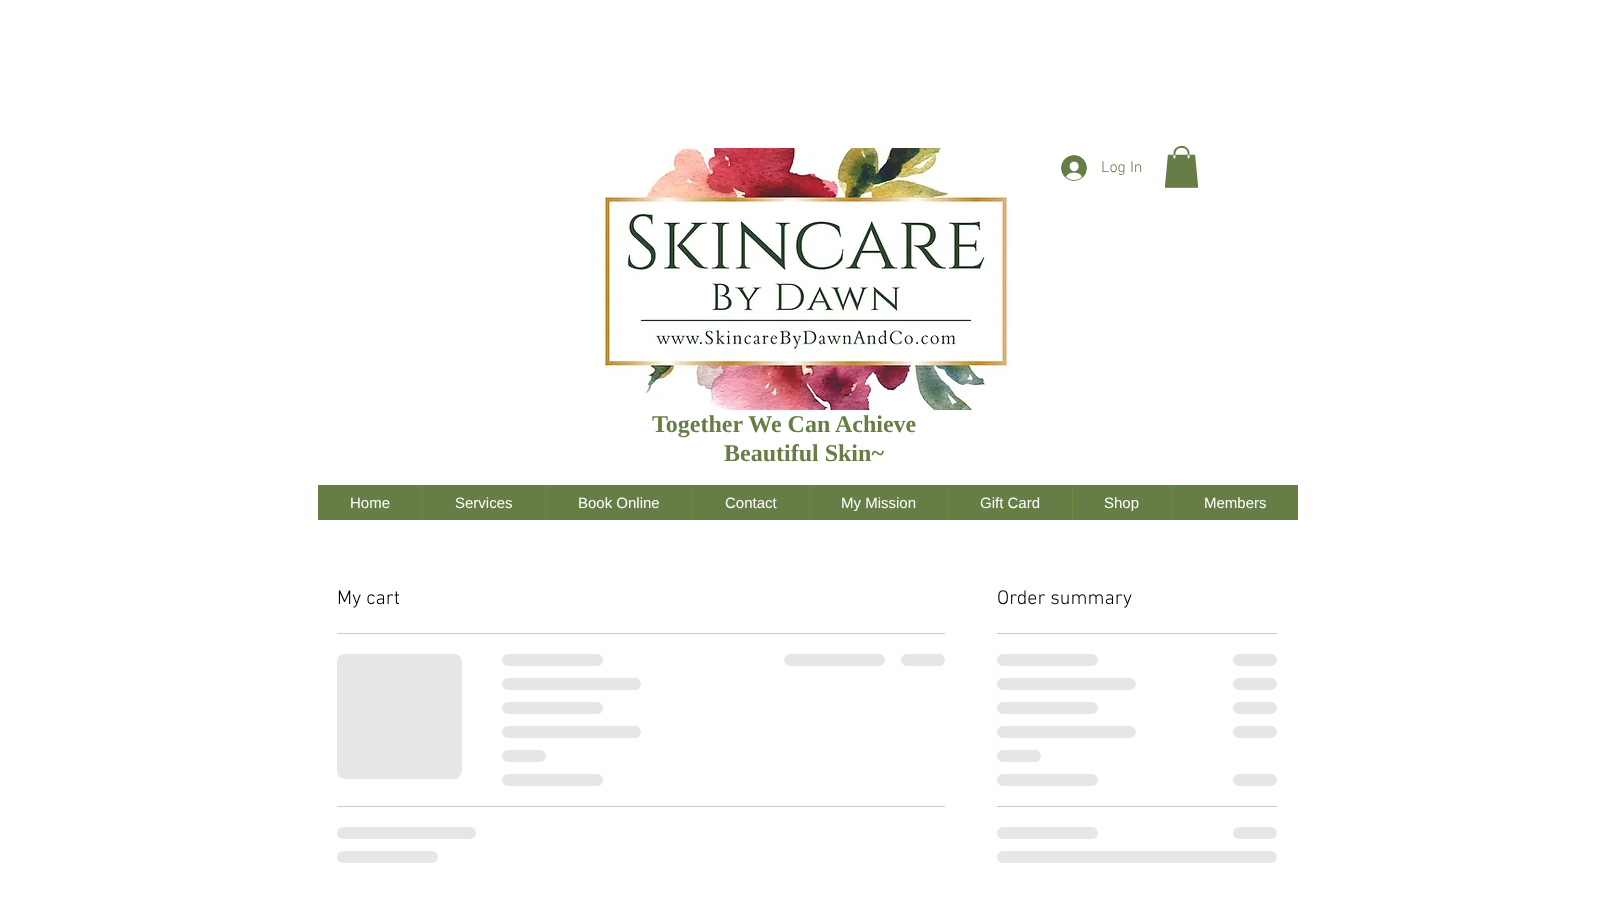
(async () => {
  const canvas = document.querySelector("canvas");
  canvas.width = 1614;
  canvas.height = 923;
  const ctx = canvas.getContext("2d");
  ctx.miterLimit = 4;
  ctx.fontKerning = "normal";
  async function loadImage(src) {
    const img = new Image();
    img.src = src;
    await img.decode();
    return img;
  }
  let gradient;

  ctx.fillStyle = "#ffffff";
  ctx.fillRect(0, 0, 1614, 923);
  ctx.drawImage(await loadImage("img/1.png"), 603, 148, 408, 262);
  ctx.drawImage(await loadImage("img/2.png"), 1061, 155, 26, 26);
  ctx.drawImage(await loadImage("img/3.png"), 1164, 146, 35, 42);
  for (const [x, y, w, h, color] of [
    [318, 485, 980, 35, "#667e45"],
    [422, 485, 1, 35, "#6b8841"],
    [545, 485, 1, 35, "#6b8841"],
    [692, 485, 1, 35, "#6b8841"],
    [809, 485, 1, 35, "#6b8841"],
    [948, 485, 1, 35, "#6b8841"],
    [1072, 485, 1, 35, "#6b8841"],
    [1171, 485, 1, 35, "#6b8841"],
    [337, 633, 608, 1, "#cccccc"],
  ]) {
    ctx.fillStyle = color;
    ctx.fillRect(x, y, w, h);
  }
  gradient = ctx.createLinearGradient(337, 717, 837, 717);
  gradient.addColorStop(0.25, "#e6e6e6");
  gradient.addColorStop(0.37, "#cccccc");
  gradient.addColorStop(0.63, "#e6e6e6");
  ctx.fillStyle = gradient;
  ctx.beginPath();
  ctx.roundRect(337, 654, 125, 125, 8);
  ctx.fill();
  gradient = ctx.createLinearGradient(502, 660, 906, 660);
  gradient.addColorStop(0.25, "#e6e6e6");
  gradient.addColorStop(0.37, "#cccccc");
  gradient.addColorStop(0.63, "#e6e6e6");
  ctx.fillStyle = gradient;
  ctx.beginPath();
  ctx.roundRect(502, 654, 101, 12, 6);
  ctx.fill();
  gradient = ctx.createLinearGradient(502, 684, 1058, 684);
  gradient.addColorStop(0.25, "#e6e6e6");
  gradient.addColorStop(0.37, "#cccccc");
  gradient.addColorStop(0.63, "#e6e6e6");
  ctx.fillStyle = gradient;
  ctx.beginPath();
  ctx.roundRect(502, 678, 139, 12, 6);
  ctx.fill();
  gradient = ctx.createLinearGradient(502, 708, 906, 708);
  gradient.addColorStop(0.25, "#e6e6e6");
  gradient.addColorStop(0.37, "#cccccc");
  gradient.addColorStop(0.63, "#e6e6e6");
  ctx.fillStyle = gradient;
  ctx.beginPath();
  ctx.roundRect(502, 702, 101, 12, 6);
  ctx.fill();
  gradient = ctx.createLinearGradient(502, 732, 1058, 732);
  gradient.addColorStop(0.25, "#e6e6e6");
  gradient.addColorStop(0.37, "#cccccc");
  gradient.addColorStop(0.63, "#e6e6e6");
  ctx.fillStyle = gradient;
  ctx.beginPath();
  ctx.roundRect(502, 726, 139, 12, 6);
  ctx.fill();
  gradient = ctx.createLinearGradient(502, 756, 678, 756);
  gradient.addColorStop(0.25, "#e6e6e6");
  gradient.addColorStop(0.37, "#cccccc");
  gradient.addColorStop(0.63, "#e6e6e6");
  ctx.fillStyle = gradient;
  ctx.beginPath();
  ctx.roundRect(502, 750, 44, 12, 6);
  ctx.fill();
  gradient = ctx.createLinearGradient(502, 780, 906, 780);
  gradient.addColorStop(0.25, "#e6e6e6");
  gradient.addColorStop(0.37, "#cccccc");
  gradient.addColorStop(0.63, "#e6e6e6");
  ctx.fillStyle = gradient;
  ctx.beginPath();
  ctx.roundRect(502, 774, 101, 12, 6);
  ctx.fill();
  gradient = ctx.createLinearGradient(784, 660, 1188, 660);
  gradient.addColorStop(0.25, "#e6e6e6");
  gradient.addColorStop(0.37, "#cccccc");
  gradient.addColorStop(0.63, "#e6e6e6");
  ctx.fillStyle = gradient;
  ctx.beginPath();
  ctx.roundRect(784, 654, 101, 12, 6);
  ctx.fill();
  gradient = ctx.createLinearGradient(901, 660, 1077, 660);
  gradient.addColorStop(0.25, "#e6e6e6");
  gradient.addColorStop(0.37, "#cccccc");
  gradient.addColorStop(0.63, "#e6e6e6");
  ctx.fillStyle = gradient;
  ctx.beginPath();
  ctx.roundRect(901, 654, 44, 12, 6);
  ctx.fill();
  ctx.fillStyle = "#cccccc";
  ctx.fillRect(337, 806, 608, 1);
  gradient = ctx.createLinearGradient(337, 833, 893, 833);
  gradient.addColorStop(0.25, "#e6e6e6");
  gradient.addColorStop(0.37, "#cccccc");
  gradient.addColorStop(0.63, "#e6e6e6");
  ctx.fillStyle = gradient;
  ctx.beginPath();
  ctx.roundRect(337, 827, 139, 12, 6);
  ctx.fill();
  gradient = ctx.createLinearGradient(337, 857, 741, 857);
  gradient.addColorStop(0.25, "#e6e6e6");
  gradient.addColorStop(0.37, "#cccccc");
  gradient.addColorStop(0.63, "#e6e6e6");
  ctx.fillStyle = gradient;
  ctx.beginPath();
  ctx.roundRect(337, 851, 101, 12, 6);
  ctx.fill();
  ctx.fillStyle = "#cccccc";
  ctx.fillRect(997, 633, 280, 1);
  gradient = ctx.createLinearGradient(997, 660, 1401, 660);
  gradient.addColorStop(0.25, "#e6e6e6");
  gradient.addColorStop(0.37, "#cccccc");
  gradient.addColorStop(0.63, "#e6e6e6");
  ctx.fillStyle = gradient;
  ctx.beginPath();
  ctx.roundRect(997, 654, 101, 12, 6);
  ctx.fill();
  gradient = ctx.createLinearGradient(1233, 660, 1409, 660);
  gradient.addColorStop(0.25, "#e6e6e6");
  gradient.addColorStop(0.37, "#cccccc");
  gradient.addColorStop(0.63, "#e6e6e6");
  ctx.fillStyle = gradient;
  ctx.beginPath();
  ctx.roundRect(1233, 654, 44, 12, 6);
  ctx.fill();
  gradient = ctx.createLinearGradient(997, 684, 1553, 684);
  gradient.addColorStop(0.25, "#e6e6e6");
  gradient.addColorStop(0.37, "#cccccc");
  gradient.addColorStop(0.63, "#e6e6e6");
  ctx.fillStyle = gradient;
  ctx.beginPath();
  ctx.roundRect(997, 678, 139, 12, 6);
  ctx.fill();
  gradient = ctx.createLinearGradient(1233, 684, 1409, 684);
  gradient.addColorStop(0.25, "#e6e6e6");
  gradient.addColorStop(0.37, "#cccccc");
  gradient.addColorStop(0.63, "#e6e6e6");
  ctx.fillStyle = gradient;
  ctx.beginPath();
  ctx.roundRect(1233, 678, 44, 12, 6);
  ctx.fill();
  gradient = ctx.createLinearGradient(997, 708, 1401, 708);
  gradient.addColorStop(0.25, "#e6e6e6");
  gradient.addColorStop(0.37, "#cccccc");
  gradient.addColorStop(0.63, "#e6e6e6");
  ctx.fillStyle = gradient;
  ctx.beginPath();
  ctx.roundRect(997, 702, 101, 12, 6);
  ctx.fill();
  gradient = ctx.createLinearGradient(1233, 708, 1409, 708);
  gradient.addColorStop(0.25, "#e6e6e6");
  gradient.addColorStop(0.37, "#cccccc");
  gradient.addColorStop(0.63, "#e6e6e6");
  ctx.fillStyle = gradient;
  ctx.beginPath();
  ctx.roundRect(1233, 702, 44, 12, 6);
  ctx.fill();
  gradient = ctx.createLinearGradient(997, 732, 1553, 732);
  gradient.addColorStop(0.25, "#e6e6e6");
  gradient.addColorStop(0.37, "#cccccc");
  gradient.addColorStop(0.63, "#e6e6e6");
  ctx.fillStyle = gradient;
  ctx.beginPath();
  ctx.roundRect(997, 726, 139, 12, 6);
  ctx.fill();
  gradient = ctx.createLinearGradient(1233, 732, 1409, 732);
  gradient.addColorStop(0.25, "#e6e6e6");
  gradient.addColorStop(0.37, "#cccccc");
  gradient.addColorStop(0.63, "#e6e6e6");
  ctx.fillStyle = gradient;
  ctx.beginPath();
  ctx.roundRect(1233, 726, 44, 12, 6);
  ctx.fill();
  gradient = ctx.createLinearGradient(997, 756, 1173, 756);
  gradient.addColorStop(0.25, "#e6e6e6");
  gradient.addColorStop(0.37, "#cccccc");
  gradient.addColorStop(0.63, "#e6e6e6");
  ctx.fillStyle = gradient;
  ctx.beginPath();
  ctx.roundRect(997, 750, 44, 12, 6);
  ctx.fill();
  gradient = ctx.createLinearGradient(997, 780, 1401, 780);
  gradient.addColorStop(0.25, "#e6e6e6");
  gradient.addColorStop(0.37, "#cccccc");
  gradient.addColorStop(0.63, "#e6e6e6");
  ctx.fillStyle = gradient;
  ctx.beginPath();
  ctx.roundRect(997, 774, 101, 12, 6);
  ctx.fill();
  gradient = ctx.createLinearGradient(1233, 780, 1409, 780);
  gradient.addColorStop(0.25, "#e6e6e6");
  gradient.addColorStop(0.37, "#cccccc");
  gradient.addColorStop(0.63, "#e6e6e6");
  ctx.fillStyle = gradient;
  ctx.beginPath();
  ctx.roundRect(1233, 774, 44, 12, 6);
  ctx.fill();
  ctx.fillStyle = "#cccccc";
  ctx.fillRect(997, 806, 280, 1);
  gradient = ctx.createLinearGradient(997, 833, 1401, 833);
  gradient.addColorStop(0.25, "#e6e6e6");
  gradient.addColorStop(0.37, "#cccccc");
  gradient.addColorStop(0.63, "#e6e6e6");
  ctx.fillStyle = gradient;
  ctx.beginPath();
  ctx.roundRect(997, 827, 101, 12, 6);
  ctx.fill();
  gradient = ctx.createLinearGradient(1233, 833, 1409, 833);
  gradient.addColorStop(0.25, "#e6e6e6");
  gradient.addColorStop(0.37, "#cccccc");
  gradient.addColorStop(0.63, "#e6e6e6");
  ctx.fillStyle = gradient;
  ctx.beginPath();
  ctx.roundRect(1233, 827, 44, 12, 6);
  ctx.fill();
  gradient = ctx.createLinearGradient(997, 857, 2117, 857);
  gradient.addColorStop(0.25, "#e6e6e6");
  gradient.addColorStop(0.37, "#cccccc");
  gradient.addColorStop(0.63, "#e6e6e6");
  ctx.fillStyle = gradient;
  ctx.beginPath();
  ctx.roundRect(997, 851, 280, 12, 6);
  ctx.fill();
  ctx.font = "300 16px 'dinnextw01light'";
  ctx.fillStyle = "#667e45";
  ctx.fillText("Log In", 1101, 172);
  ctx.font = "bold 24px Liberation Serif";
  ctx.fillText("Together We Can Achieve", 652, 432);
  ctx.fillText("Beautiful Skin~", 724, 461);
  ctx.font = "15px Liberation Sans";
  ctx.fillStyle = "#ffffff";
  for (const [text, x, y] of [
    ["Home", 350, 508],
    ["Services", 455, 508],
    ["Book Online", 578, 508],
    ["Contact", 725, 508],
    ["My Mission", 841, 508],
    ["Gift Card", 980, 508],
    ["Shop", 1104, 508],
    ["Members", 1204, 508],
  ]) {
    ctx.fillText(text, x, y);
  }
  ctx.font = "300 20px 'dinnextw01light'";
  ctx.fillStyle = "#000000";
  ctx.fillText("My cart", 337, 604);
  ctx.fillText("Order summary", 997, 604);
})();
